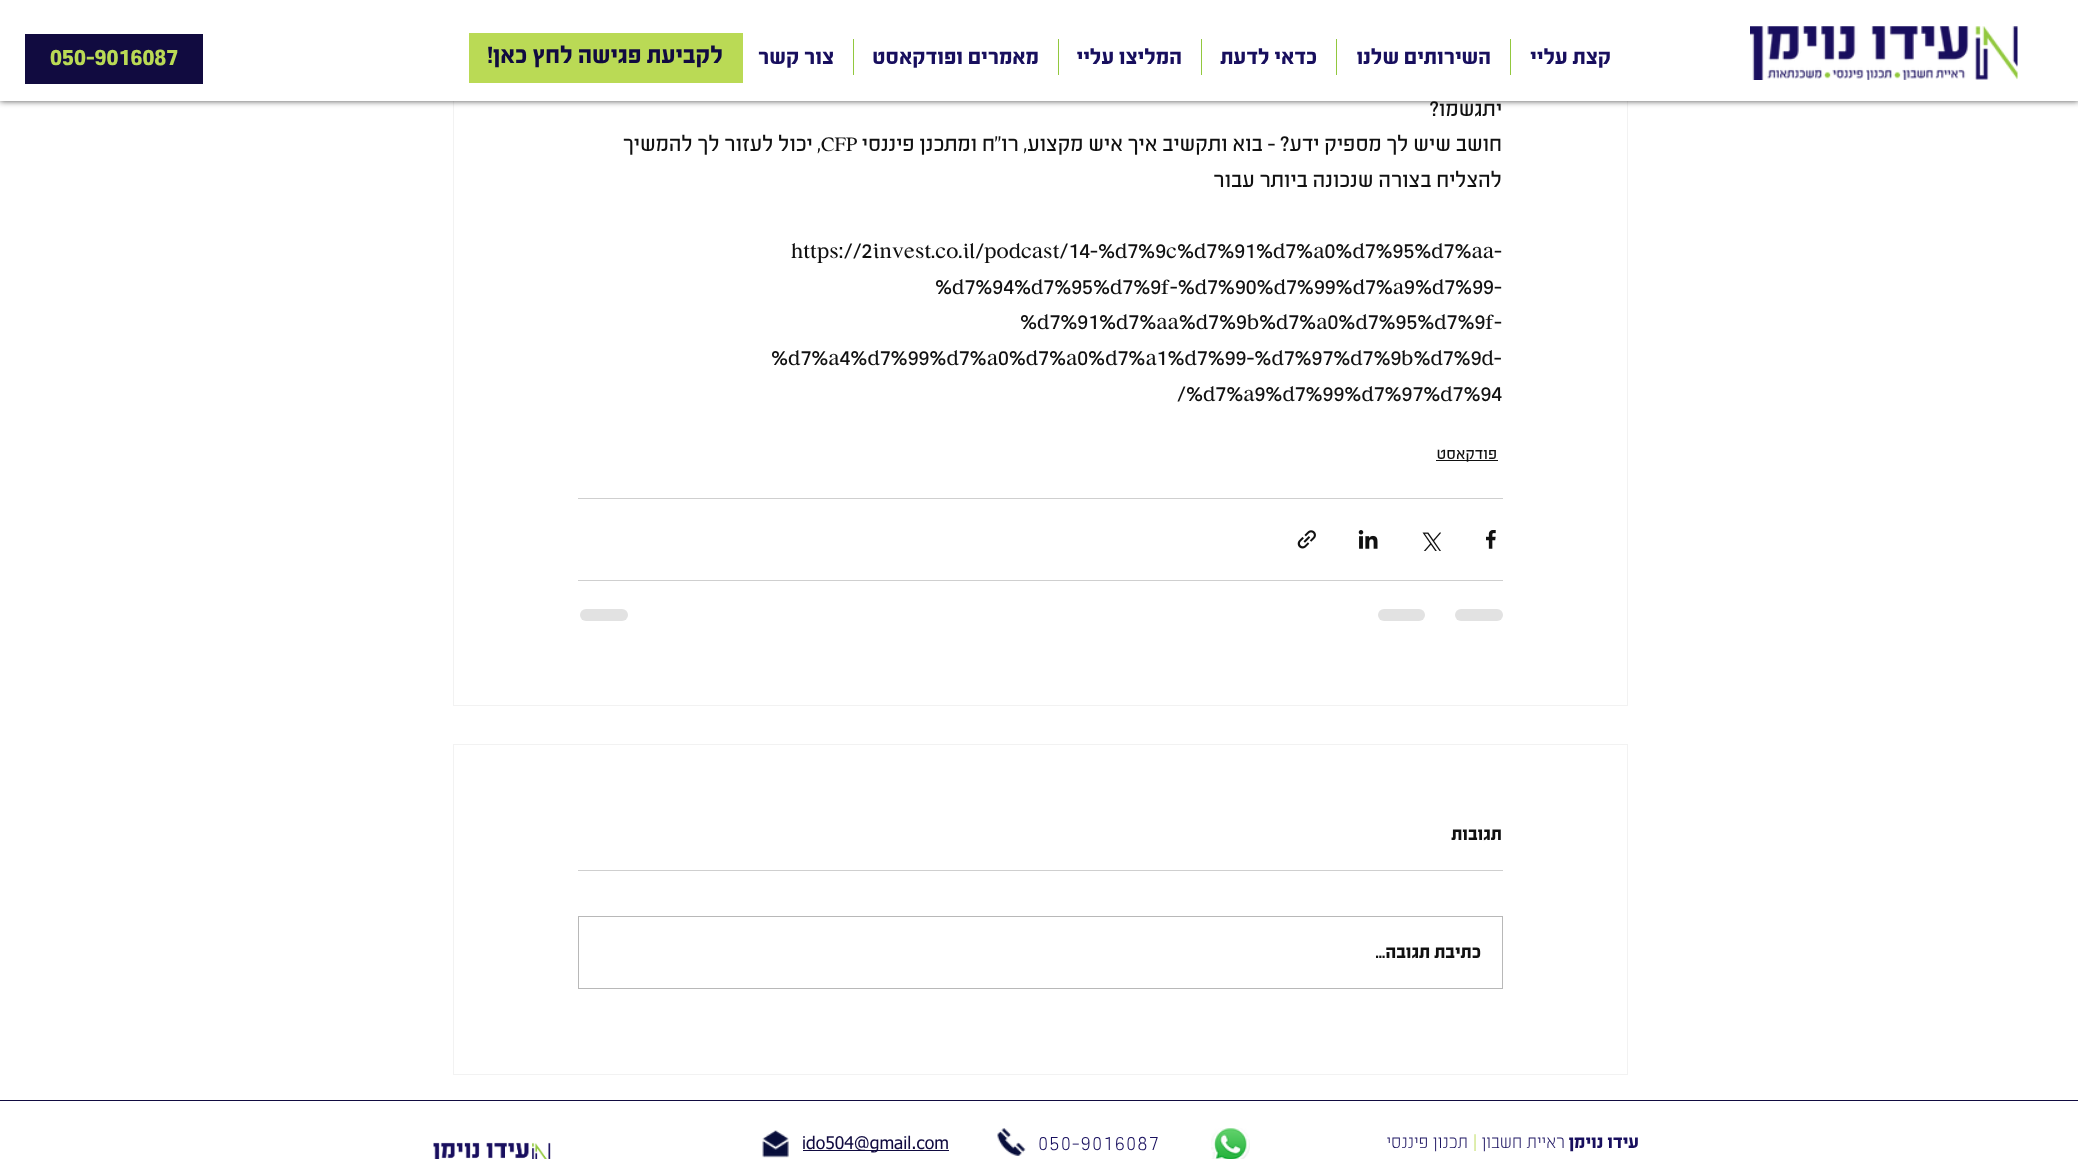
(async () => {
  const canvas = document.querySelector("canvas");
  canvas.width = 2078;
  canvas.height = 1159;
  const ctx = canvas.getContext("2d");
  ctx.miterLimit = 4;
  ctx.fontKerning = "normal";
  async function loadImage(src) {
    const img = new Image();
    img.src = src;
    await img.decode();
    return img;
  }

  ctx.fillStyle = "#ffffff";
  ctx.fillRect(0, 0, 2078, 1159);
  ctx.strokeStyle = "#f2f2f2";
  ctx.strokeRect(453.5, -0.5, 1174, 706);
  ctx.fillStyle = "rgba(0, 0, 0, 0.7)";
  ctx.filter = "blur(3px)";
  ctx.beginPath();
  ctx.rect(0, 0, 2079, 101);
  ctx.fill();
  ctx.filter = "none";
  ctx.fillStyle = "#ffffff";
  ctx.fillRect(0, 0, 2078, 101);
  ctx.drawImage(await loadImage("img/1.png"), 1750, 26, 268, 54);
  for (const [x, y, w, h, color] of [
    [1510, 39, 1, 36, "#92c83e"],
    [1336, 39, 1, 36, "#92c83e"],
    [1201, 39, 1, 36, "#92c83e"],
    [1058, 39, 1, 36, "#92c83e"],
    [853, 39, 1, 36, "#92c83e"],
    [469, 33, 274, 50, "#bada55"],
    [25, 34, 178, 50, "#110b40"],
    [1436, 460, 62, 1, "#111111"],
    [578, 498, 925, 1, "#cfcfcf"],
  ]) {
    ctx.fillStyle = color;
    ctx.fillRect(x, y, w, h);
  }
  ctx.drawImage(await loadImage("img/2.png"), 1486, 530, 10, 19);
  ctx.drawImage(await loadImage("img/3.png"), 1422, 532, 19, 19);
  ctx.drawImage(await loadImage("img/4.png"), 1358, 530, 20, 19);
  ctx.drawImage(await loadImage("img/5.png"), 1297, 530, 19, 19);
  ctx.fillRect(578, 580, 925, 1);
  ctx.fillStyle = "#e2e2e2";
  ctx.beginPath();
  ctx.roundRect(1455, 609, 48, 12, 6);
  ctx.fill();
  ctx.beginPath();
  ctx.roundRect(1378, 609, 47, 12, 6);
  ctx.fill();
  ctx.beginPath();
  ctx.roundRect(580, 609, 48, 12, 6);
  ctx.fill();
  ctx.strokeRect(453.5, 744.5, 1174, 330);
  ctx.fillStyle = "#cfcfcf";
  ctx.fillRect(578, 870, 925, 1);
  ctx.strokeStyle = "#b8b8b8";
  ctx.strokeRect(578.5, 916.5, 924, 72);
  ctx.fillStyle = "#110b40";
  ctx.fillRect(0, 1100, 2078, 1);
  ctx.drawImage(await loadImage("img/6.png"), 1211, 1128, 39, 31);
  ctx.drawImage(await loadImage("img/7.png"), 997, 1128, 29, 28);
  ctx.fillRect(803, 1150, 146, 1);
  ctx.drawImage(await loadImage("img/8.png"), 762, 1130, 27, 28);
  ctx.drawImage(await loadImage("img/9.png"), 433, 1142, 118, 17);
  ctx.direction = "rtl";
  ctx.font = "bold 23.75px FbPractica";
  ctx.fillStyle = "#180f5e";
  for (const [text, x, y] of [
    ["קצת עליי", 1611, 64],
    ["השירותים שלנו", 1491, 64],
    ["כדאי לדעת", 1317, 64],
    ["המליצו עליי", 1182, 64],
    ["מאמרים ופודקאסט", 1039, 64],
    ["צור קשר", 834, 64],
  ]) {
    ctx.fillText(text, x, y);
  }
  ctx.font = "bold 26.25px FbPractica";
  ctx.fillStyle = "#110b40";
  ctx.fillText("לקביעת פגישה לחץ כאן", 723, 63);
  ctx.direction = "ltr";
  ctx.fillText("!", 487, 63);
  ctx.fillStyle = "#bada55";
  ctx.fillText("050-9016087", 50, 65);
  ctx.direction = "rtl";
  ctx.font = "23.75px FbPractica";
  ctx.fillStyle = "#111111";
  ctx.fillText("יתגשמו?", 1502, 116);
  ctx.fillText("חושב שיש לך מספיק ידע? - בוא ותקשיב איך איש מקצוע, רו\"ח ומתכנן פיננסי", 1502, 151);
  ctx.direction = "ltr";
  ctx.fillText("CFP", 821, 151);
  ctx.direction = "rtl";
  ctx.fillText(", יכול לעזור לך להמשיך", 821, 151);
  ctx.fillText("להצליח בצורה שנכונה ביותר עבור", 1502, 187);
  ctx.direction = "ltr";
  for (const [text, x, y] of [
    ["https://2invest.co.il/podcast/14-%d7%9c%d7%91%d7%a0%d7%95%d7%aa-", 791, 258],
    ["%d7%94%d7%95%d7%9f-%d7%90%d7%99%d7%a9%d7%99-", 935, 294],
    ["%d7%91%d7%aa%d7%9b%d7%a0%d7%95%d7%9f-", 1020, 329],
    ["%d7%a4%d7%99%d7%a0%d7%a0%d7%a1%d7%99-%d7%97%d7%9b%d7%9d-", 771, 365],
    ["/%d7%a9%d7%99%d7%97%d7%94", 1177, 401],
  ]) {
    ctx.fillText(text, x, y);
  }
  ctx.direction = "rtl";
  ctx.font = "17.5px FbPractica";
  ctx.fillText("פודקאסט", 1497, 459);
  ctx.font = "bold 20px FbPractica";
  ctx.fillText("תגובות", 1502, 840);
  ctx.fillText("כתיבת תגובה...", 1481, 958);
  ctx.fillStyle = "#180f5e";
  ctx.fillText("עידו נוימן", 1639, 1148);
  ctx.font = "300 20px FbPractica";
  ctx.fillText("ראיית חשבון", 1565, 1148);
  ctx.direction = "ltr";
  ctx.fillStyle = "#bada55";
  ctx.fillText("|", 1473, 1148);
  ctx.direction = "rtl";
  ctx.fillStyle = "#180f5e";
  ctx.fillText("תכנון פיננסי", 1468, 1148);
  ctx.letterSpacing = "1.1px";
  ctx.direction = "ltr";
  ctx.font = "300 22.5px FbPractica";
  ctx.fillText("050-9016087", 1038, 1150);
  ctx.letterSpacing = "0px";
  ctx.font = "17.5px tahoma";
  ctx.fillStyle = "#110b40";
  ctx.fillText("ido504@gmail.com", 802, 1149);
})();
